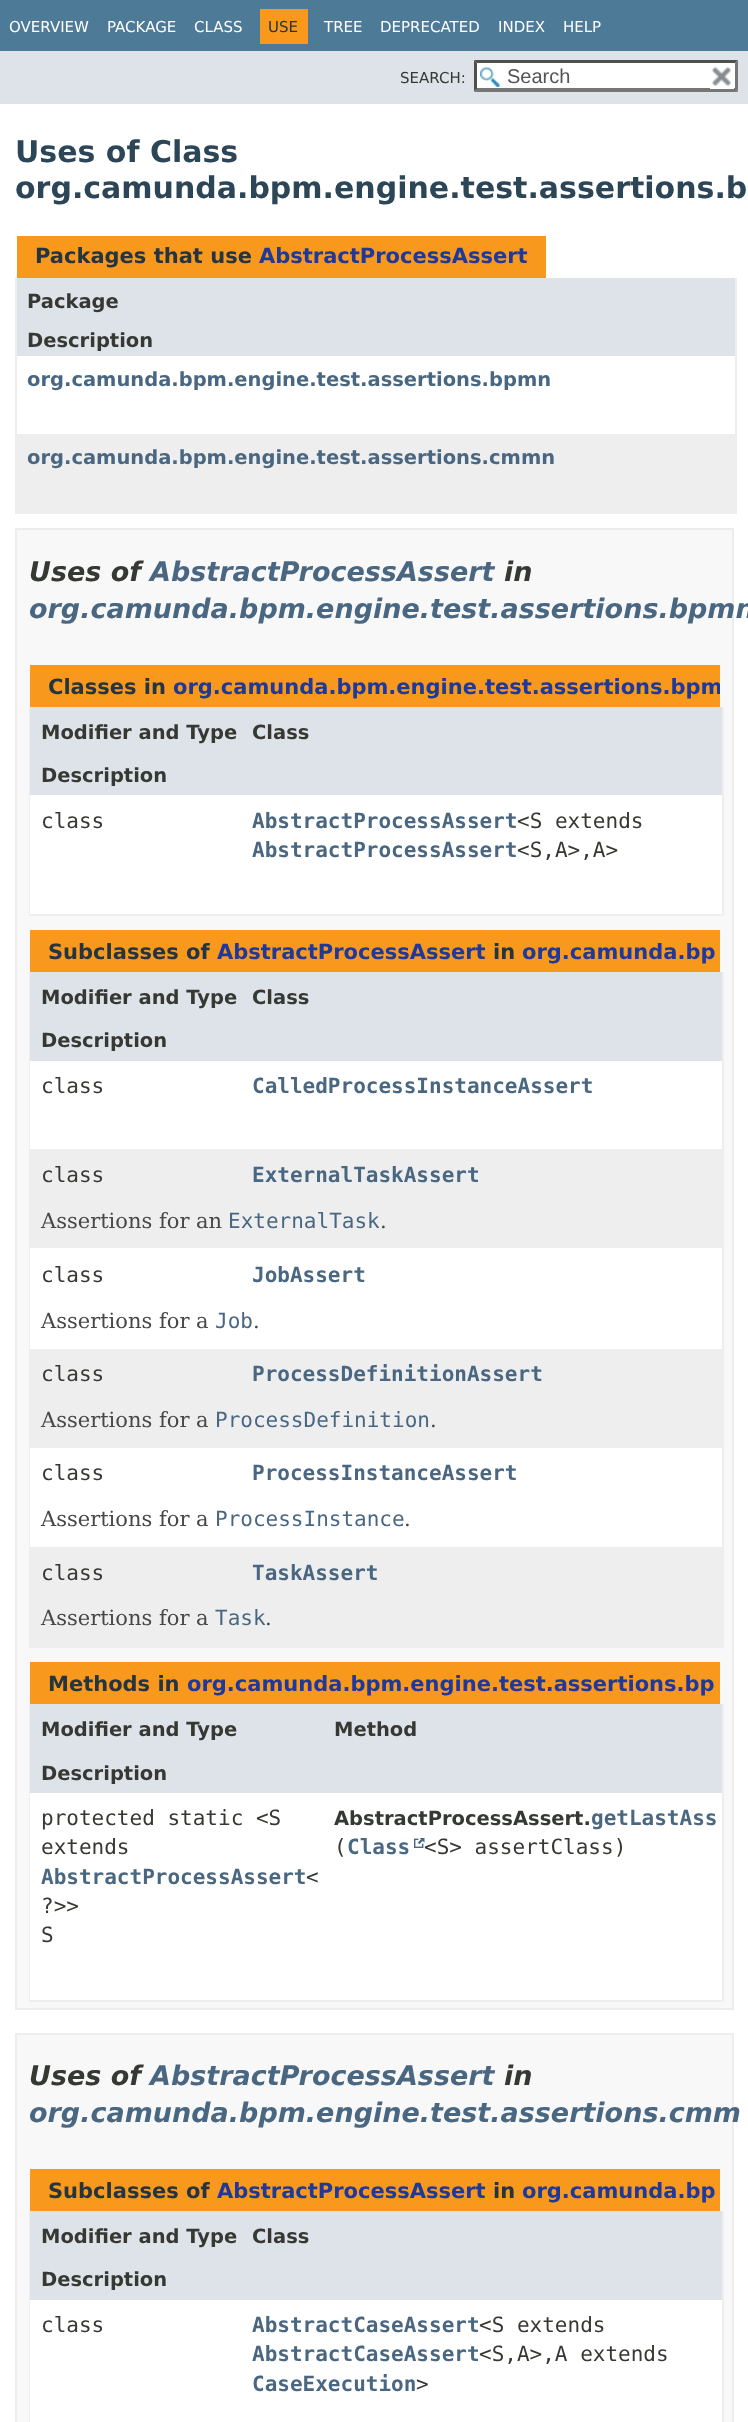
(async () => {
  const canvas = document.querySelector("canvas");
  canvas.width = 748;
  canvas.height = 2422;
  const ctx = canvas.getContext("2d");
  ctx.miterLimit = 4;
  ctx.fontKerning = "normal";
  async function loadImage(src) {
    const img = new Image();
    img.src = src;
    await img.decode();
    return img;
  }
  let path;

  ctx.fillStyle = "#ffffff";
  ctx.fillRect(0, 0, 748, 2422);
  for (const [x, y, w, h, color] of [
    [0, 0, 748, 51, "#4d7a97"],
    [260, 9, 48, 35, "#f8981d"],
    [0, 51, 748, 53, "#dee3e9"],
    [474, 60, 264, 32, "#ffffff"],
  ]) {
    ctx.fillStyle = color;
    ctx.fillRect(x, y, w, h);
  }
  ctx.drawImage(await loadImage("img/1.png"), 480, 67, 20, 20);
  ctx.fillStyle = "#4f4f4f";
  path = new Path2D("M474 60H738L735 63H477Z");
  ctx.fill(path);
  ctx.fillStyle = "#767676";
  path = new Path2D("M738 60V91.5L735 88.5V63Z");
  ctx.fill(path);
  path = new Path2D("M738 92H474L477 88H735Z");
  ctx.fill(path);
  ctx.fillStyle = "#4f4f4f";
  path = new Path2D("M474 91.5V60L477 63V88.5Z");
  ctx.fill(path);
  ctx.fillStyle = "#ffffff";
  ctx.fillRect(710, 88, 24, 1);
  ctx.drawImage(await loadImage("img/2.png"), 711, 66, 20, 20);
  for (const [x, y, w, h, color] of [
    [17, 236, 529, 42, "#f8981d"],
    [735, 278, 2, 235, "#eeeeee"],
    [15, 512, 722, 2, "#eeeeee"],
    [15, 278, 2, 235, "#eeeeee"],
    [17, 278, 718, 78, "#dee3e9"],
    [17, 434, 718, 78, "#eeeeef"],
  ]) {
    ctx.fillStyle = color;
    ctx.fillRect(x, y, w, h);
  }
  ctx.fillStyle = "#f8f8f8";
  ctx.beginPath();
  ctx.rect(16, 529, 717, 1480);
  ctx.fill();
  ctx.strokeStyle = "#ededed";
  ctx.lineWidth = 2;
  ctx.stroke();
  for (const [x, y, w, h, color] of [
    [30, 665, 690, 42, "#f8981d"],
    [722, 707, 2, 208, "#eeeeee"],
    [29, 914, 694, 2, "#eeeeee"],
    [29, 707, 2, 208, "#eeeeee"],
    [30, 707, 692, 45, "#dee3e9"],
    [30, 752, 692, 43, "#dee3e9"],
    [30, 795, 692, 75, "#ffffff"],
    [30, 870, 692, 44, "#ffffff"],
    [30, 930, 690, 42, "#f8981d"],
    [722, 972, 2, 675, "#eeeeee"],
    [29, 1646, 694, 2, "#eeeeee"],
    [29, 972, 2, 675, "#eeeeee"],
    [30, 972, 692, 44, "#dee3e9"],
    [30, 1016, 692, 45, "#dee3e9"],
    [30, 1061, 692, 45, "#ffffff"],
    [30, 1106, 692, 43, "#ffffff"],
    [31, 1149, 691, 47, "#eeeeef"],
    [31, 1196, 691, 52, "#eeeeef"],
    [30, 1248, 692, 47, "#ffffff"],
    [30, 1295, 692, 54, "#ffffff"],
    [31, 1349, 691, 45, "#eeeeef"],
    [31, 1394, 691, 54, "#eeeeef"],
    [30, 1448, 692, 45, "#ffffff"],
    [30, 1493, 692, 54, "#ffffff"],
    [31, 1547, 691, 46, "#eeeeef"],
    [31, 1593, 691, 53, "#eeeeef"],
    [30, 1662, 690, 42, "#f8981d"],
    [722, 1704, 2, 297, "#eeeeee"],
    [29, 2000, 694, 2, "#eeeeee"],
    [29, 1704, 2, 297, "#eeeeee"],
    [30, 1704, 692, 44, "#dee3e9"],
    [30, 1748, 692, 45, "#dee3e9"],
    [30, 1793, 692, 163, "#ffffff"],
  ]) {
    ctx.fillStyle = color;
    ctx.fillRect(x, y, w, h);
  }
  ctx.drawImage(await loadImage("img/3.png"), 414, 1838, 11, 10);
  ctx.fillRect(30, 1956, 692, 44);
  ctx.fillStyle = "#f8f8f8";
  ctx.beginPath();
  ctx.rect(16, 2034, 717, 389);
  ctx.fill();
  ctx.stroke();
  for (const [x, y, w, h, color] of [
    [30, 2169, 690, 42, "#f8981d"],
    [722, 2211, 2, 211, "#eeeeee"],
    [29, 2211, 1, 211, "#eeeeee"],
    [30, 2211, 692, 44, "#dee3e9"],
    [30, 2255, 692, 45, "#dee3e9"],
    [30, 2300, 692, 103, "#ffffff"],
    [30, 2403, 692, 19, "#ffffff"],
  ]) {
    ctx.fillStyle = color;
    ctx.fillRect(x, y, w, h);
  }
  ctx.font = "15px DejaVu Sans";
  for (const [text, x, y] of [
    ["OVERVIEW", 9, 32],
    ["PACKAGE", 107, 32],
    ["CLASS", 194, 32],
  ]) {
    ctx.fillText(text, x, y);
  }
  ctx.fillStyle = "#253441";
  ctx.fillText("USE", 268, 32);
  ctx.fillStyle = "#ffffff";
  for (const [text, x, y] of [
    ["TREE", 324, 32],
    ["DEPRECATED", 380, 32],
    ["INDEX", 498, 32],
    ["HELP", 563, 32],
  ]) {
    ctx.fillText(text, x, y);
  }
  ctx.fillStyle = "#353833";
  ctx.fillText("SEARCH:", 400, 83);
  ctx.font = "20px Liberation Sans";
  ctx.fillStyle = "#545454";
  ctx.fillText("Search", 507, 83);
  ctx.font = "bold 30px DejaVu Sans";
  ctx.fillStyle = "#2c4557";
  ctx.fillText("Uses of Class", 15, 162);
  ctx.fillText("org.camunda.bpm.engine.test.assertions.b", 15, 198);
  ctx.font = "bold 21px DejaVu Sans";
  ctx.fillStyle = "#253441";
  ctx.fillText("Packages that use", 35, 263);
  ctx.fillStyle = "#1f389c";
  ctx.fillText("AbstractProcessAssert", 259, 263);
  ctx.font = "bold 19.5px DejaVu Sans";
  ctx.fillStyle = "#353833";
  ctx.fillText("Package", 27, 308);
  ctx.fillText("Description", 27, 347);
  ctx.fillStyle = "#4a6782";
  ctx.fillText("org.camunda.bpm.engine.test.assertions.bpmn", 27, 386);
  ctx.fillText("org.camunda.bpm.engine.test.assertions.cmmn", 27, 464);
  ctx.font = "italic bold 27px DejaVu Sans";
  ctx.fillStyle = "#353833";
  ctx.fillText("Uses of", 29, 581);
  ctx.fillStyle = "#4a6782";
  ctx.fillText("AbstractProcessAssert", 150, 581);
  ctx.fillStyle = "#353833";
  ctx.fillText("in", 504, 581);
  ctx.fillStyle = "#4a6782";
  ctx.fillText("org.camunda.bpm.engine.test.assertions.bpmn", 29, 618);
  ctx.font = "bold 21px DejaVu Sans";
  ctx.fillStyle = "#253441";
  ctx.fillText("Classes in", 48, 694);
  ctx.save();
  ctx.beginPath();
  ctx.rect(29, 650, 691, 57);
  ctx.clip();
  ctx.fillStyle = "#1f389c";
  ctx.fillText("org.camunda.bpm.engine.test.assertions.bpm", 173, 694);
  ctx.restore();
  ctx.font = "bold 19.5px DejaVu Sans";
  ctx.fillStyle = "#353833";
  for (const [text, x, y] of [
    ["Modifier and Type", 41, 739],
    ["Class", 252, 739],
    ["Description", 41, 782],
  ]) {
    ctx.fillText(text, x, y);
  }
  ctx.font = "21px DejaVu Sans Mono";
  ctx.fillText("class", 41, 828);
  ctx.font = "bold 21px DejaVu Sans Mono";
  ctx.fillStyle = "#4a6782";
  ctx.fillText("AbstractProcessAssert", 252, 828);
  ctx.font = "21px DejaVu Sans Mono";
  ctx.fillStyle = "#353833";
  ctx.fillText("<S extends", 517, 828);
  ctx.font = "bold 21px DejaVu Sans Mono";
  ctx.fillStyle = "#4a6782";
  ctx.fillText("AbstractProcessAssert", 252, 857);
  ctx.font = "21px DejaVu Sans Mono";
  ctx.fillStyle = "#353833";
  ctx.fillText("<S,A>,A>", 517, 857);
  ctx.font = "bold 21px DejaVu Sans";
  ctx.fillStyle = "#253441";
  ctx.fillText("Subclasses of", 48, 959);
  ctx.fillStyle = "#1f389c";
  ctx.fillText("AbstractProcessAssert", 217, 959);
  ctx.fillStyle = "#253441";
  ctx.fillText("in", 493, 959);
  ctx.fillStyle = "#1f389c";
  ctx.fillText("org.camunda.bp", 522, 959);
  ctx.font = "bold 19.5px DejaVu Sans";
  ctx.fillStyle = "#353833";
  for (const [text, x, y] of [
    ["Modifier and Type", 41, 1004],
    ["Class", 252, 1004],
    ["Description", 41, 1047],
  ]) {
    ctx.fillText(text, x, y);
  }
  ctx.font = "21px DejaVu Sans Mono";
  ctx.fillText("class", 41, 1093);
  ctx.font = "bold 21px DejaVu Sans Mono";
  ctx.fillStyle = "#4a6782";
  ctx.fillText("CalledProcessInstanceAssert", 252, 1093);
  ctx.font = "21px DejaVu Sans Mono";
  ctx.fillStyle = "#353833";
  ctx.fillText("class", 41, 1182);
  ctx.font = "bold 21px DejaVu Sans Mono";
  ctx.fillStyle = "#4a6782";
  ctx.fillText("ExternalTaskAssert", 252, 1182);
  ctx.font = "21px DejaVu Serif";
  ctx.fillStyle = "#474747";
  ctx.fillText("Assertions for an", 41, 1228);
  ctx.font = "21px DejaVu Sans Mono";
  ctx.fillStyle = "#4a6782";
  ctx.fillText("ExternalTask", 228, 1228);
  ctx.font = "21px DejaVu Serif";
  ctx.fillStyle = "#474747";
  ctx.fillText(".", 380, 1228);
  ctx.font = "21px DejaVu Sans Mono";
  ctx.fillStyle = "#353833";
  ctx.fillText("class", 41, 1282);
  ctx.font = "bold 21px DejaVu Sans Mono";
  ctx.fillStyle = "#4a6782";
  ctx.fillText("JobAssert", 252, 1282);
  ctx.font = "21px DejaVu Serif";
  ctx.fillStyle = "#474747";
  ctx.fillText("Assertions for a", 41, 1328);
  ctx.font = "21px DejaVu Sans Mono";
  ctx.fillStyle = "#4a6782";
  ctx.fillText("Job", 215, 1328);
  ctx.font = "21px DejaVu Serif";
  ctx.fillStyle = "#474747";
  ctx.fillText(".", 253, 1328);
  ctx.font = "21px DejaVu Sans Mono";
  ctx.fillStyle = "#353833";
  ctx.fillText("class", 41, 1381);
  ctx.font = "bold 21px DejaVu Sans Mono";
  ctx.fillStyle = "#4a6782";
  ctx.fillText("ProcessDefinitionAssert", 252, 1381);
  ctx.font = "21px DejaVu Serif";
  ctx.fillStyle = "#474747";
  ctx.fillText("Assertions for a", 41, 1427);
  ctx.font = "21px DejaVu Sans Mono";
  ctx.fillStyle = "#4a6782";
  ctx.fillText("ProcessDefinition", 215, 1427);
  ctx.font = "21px DejaVu Serif";
  ctx.fillStyle = "#474747";
  ctx.fillText(".", 430, 1427);
  ctx.font = "21px DejaVu Sans Mono";
  ctx.fillStyle = "#353833";
  ctx.fillText("class", 41, 1480);
  ctx.font = "bold 21px DejaVu Sans Mono";
  ctx.fillStyle = "#4a6782";
  ctx.fillText("ProcessInstanceAssert", 252, 1480);
  ctx.font = "21px DejaVu Serif";
  ctx.fillStyle = "#474747";
  ctx.fillText("Assertions for a", 41, 1526);
  ctx.font = "21px DejaVu Sans Mono";
  ctx.fillStyle = "#4a6782";
  ctx.fillText("ProcessInstance", 215, 1526);
  ctx.font = "21px DejaVu Serif";
  ctx.fillStyle = "#474747";
  ctx.fillText(".", 404, 1526);
  ctx.font = "21px DejaVu Sans Mono";
  ctx.fillStyle = "#353833";
  ctx.fillText("class", 41, 1580);
  ctx.font = "bold 21px DejaVu Sans Mono";
  ctx.fillStyle = "#4a6782";
  ctx.fillText("TaskAssert", 252, 1580);
  ctx.font = "21px DejaVu Serif";
  ctx.fillStyle = "#474747";
  ctx.fillText("Assertions for a", 41, 1625);
  ctx.font = "21px DejaVu Sans Mono";
  ctx.fillStyle = "#4a6782";
  ctx.fillText("Task", 215, 1625);
  ctx.font = "21px DejaVu Serif";
  ctx.fillStyle = "#474747";
  ctx.fillText(".", 265, 1625);
  ctx.font = "bold 21px DejaVu Sans";
  ctx.fillStyle = "#253441";
  ctx.fillText("Methods in", 48, 1691);
  ctx.fillStyle = "#1f389c";
  ctx.fillText("org.camunda.bpm.engine.test.assertions.bp", 187, 1691);
  ctx.font = "bold 19.5px DejaVu Sans";
  ctx.fillStyle = "#353833";
  for (const [text, x, y] of [
    ["Modifier and Type", 41, 1736],
    ["Method", 334, 1736],
    ["Description", 41, 1780],
  ]) {
    ctx.fillText(text, x, y);
  }
  ctx.font = "21px DejaVu Sans Mono";
  ctx.fillText("protected static <S", 41, 1825);
  ctx.fillText("extends", 41, 1854);
  ctx.font = "bold 21px DejaVu Sans Mono";
  ctx.fillStyle = "#4a6782";
  ctx.fillText("AbstractProcessAssert", 41, 1884);
  ctx.font = "21px DejaVu Sans Mono";
  ctx.fillStyle = "#353833";
  for (const [text, x, y] of [
    ["<", 306, 1884],
    ["?>>", 41, 1913],
    ["S", 41, 1942],
  ]) {
    ctx.fillText(text, x, y);
  }
  ctx.font = "bold 21px DejaVu Sans Mono";
  ctx.fillStyle = "#4a6782";
  ctx.fillText("getLastAss", 591, 1825);
  ctx.font = "21px DejaVu Sans Mono";
  ctx.fillStyle = "#353833";
  ctx.fillText("(", 334, 1854);
  ctx.font = "bold 21px DejaVu Sans Mono";
  ctx.fillStyle = "#4a6782";
  ctx.fillText("Class", 347, 1854);
  ctx.font = "21px DejaVu Sans Mono";
  ctx.fillStyle = "#353833";
  ctx.fillText("<S> assertClass)", 424, 1854);
  ctx.font = "bold 19.5px DejaVu Sans";
  ctx.fillText("AbstractProcessAssert.", 334, 1825);
  ctx.font = "italic bold 27px DejaVu Sans";
  ctx.fillText("Uses of", 29, 2085);
  ctx.fillStyle = "#4a6782";
  ctx.fillText("AbstractProcessAssert", 150, 2085);
  ctx.fillStyle = "#353833";
  ctx.fillText("in", 504, 2085);
  ctx.fillStyle = "#4a6782";
  ctx.fillText("org.camunda.bpm.engine.test.assertions.cmm", 29, 2122);
  ctx.font = "bold 21px DejaVu Sans";
  ctx.fillStyle = "#253441";
  ctx.fillText("Subclasses of", 48, 2198);
  ctx.fillStyle = "#1f389c";
  ctx.fillText("AbstractProcessAssert", 217, 2198);
  ctx.fillStyle = "#253441";
  ctx.fillText("in", 493, 2198);
  ctx.fillStyle = "#1f389c";
  ctx.fillText("org.camunda.bp", 522, 2198);
  ctx.font = "bold 19.5px DejaVu Sans";
  ctx.fillStyle = "#353833";
  for (const [text, x, y] of [
    ["Modifier and Type", 41, 2243],
    ["Class", 252, 2243],
    ["Description", 41, 2286],
  ]) {
    ctx.fillText(text, x, y);
  }
  ctx.font = "21px DejaVu Sans Mono";
  ctx.fillText("class", 41, 2332);
  ctx.font = "bold 21px DejaVu Sans Mono";
  ctx.fillStyle = "#4a6782";
  ctx.fillText("AbstractCaseAssert", 252, 2332);
  ctx.font = "21px DejaVu Sans Mono";
  ctx.fillStyle = "#353833";
  ctx.fillText("<S extends", 479, 2332);
  ctx.font = "bold 21px DejaVu Sans Mono";
  ctx.fillStyle = "#4a6782";
  ctx.fillText("AbstractCaseAssert", 252, 2361);
  ctx.font = "21px DejaVu Sans Mono";
  ctx.fillStyle = "#353833";
  ctx.fillText("<S,A>,A extends", 479, 2361);
  ctx.font = "bold 21px DejaVu Sans Mono";
  ctx.fillStyle = "#4a6782";
  ctx.fillText("CaseExecution", 252, 2391);
  ctx.font = "21px DejaVu Sans Mono";
  ctx.fillStyle = "#353833";
  ctx.fillText(">", 416, 2391);
})();
